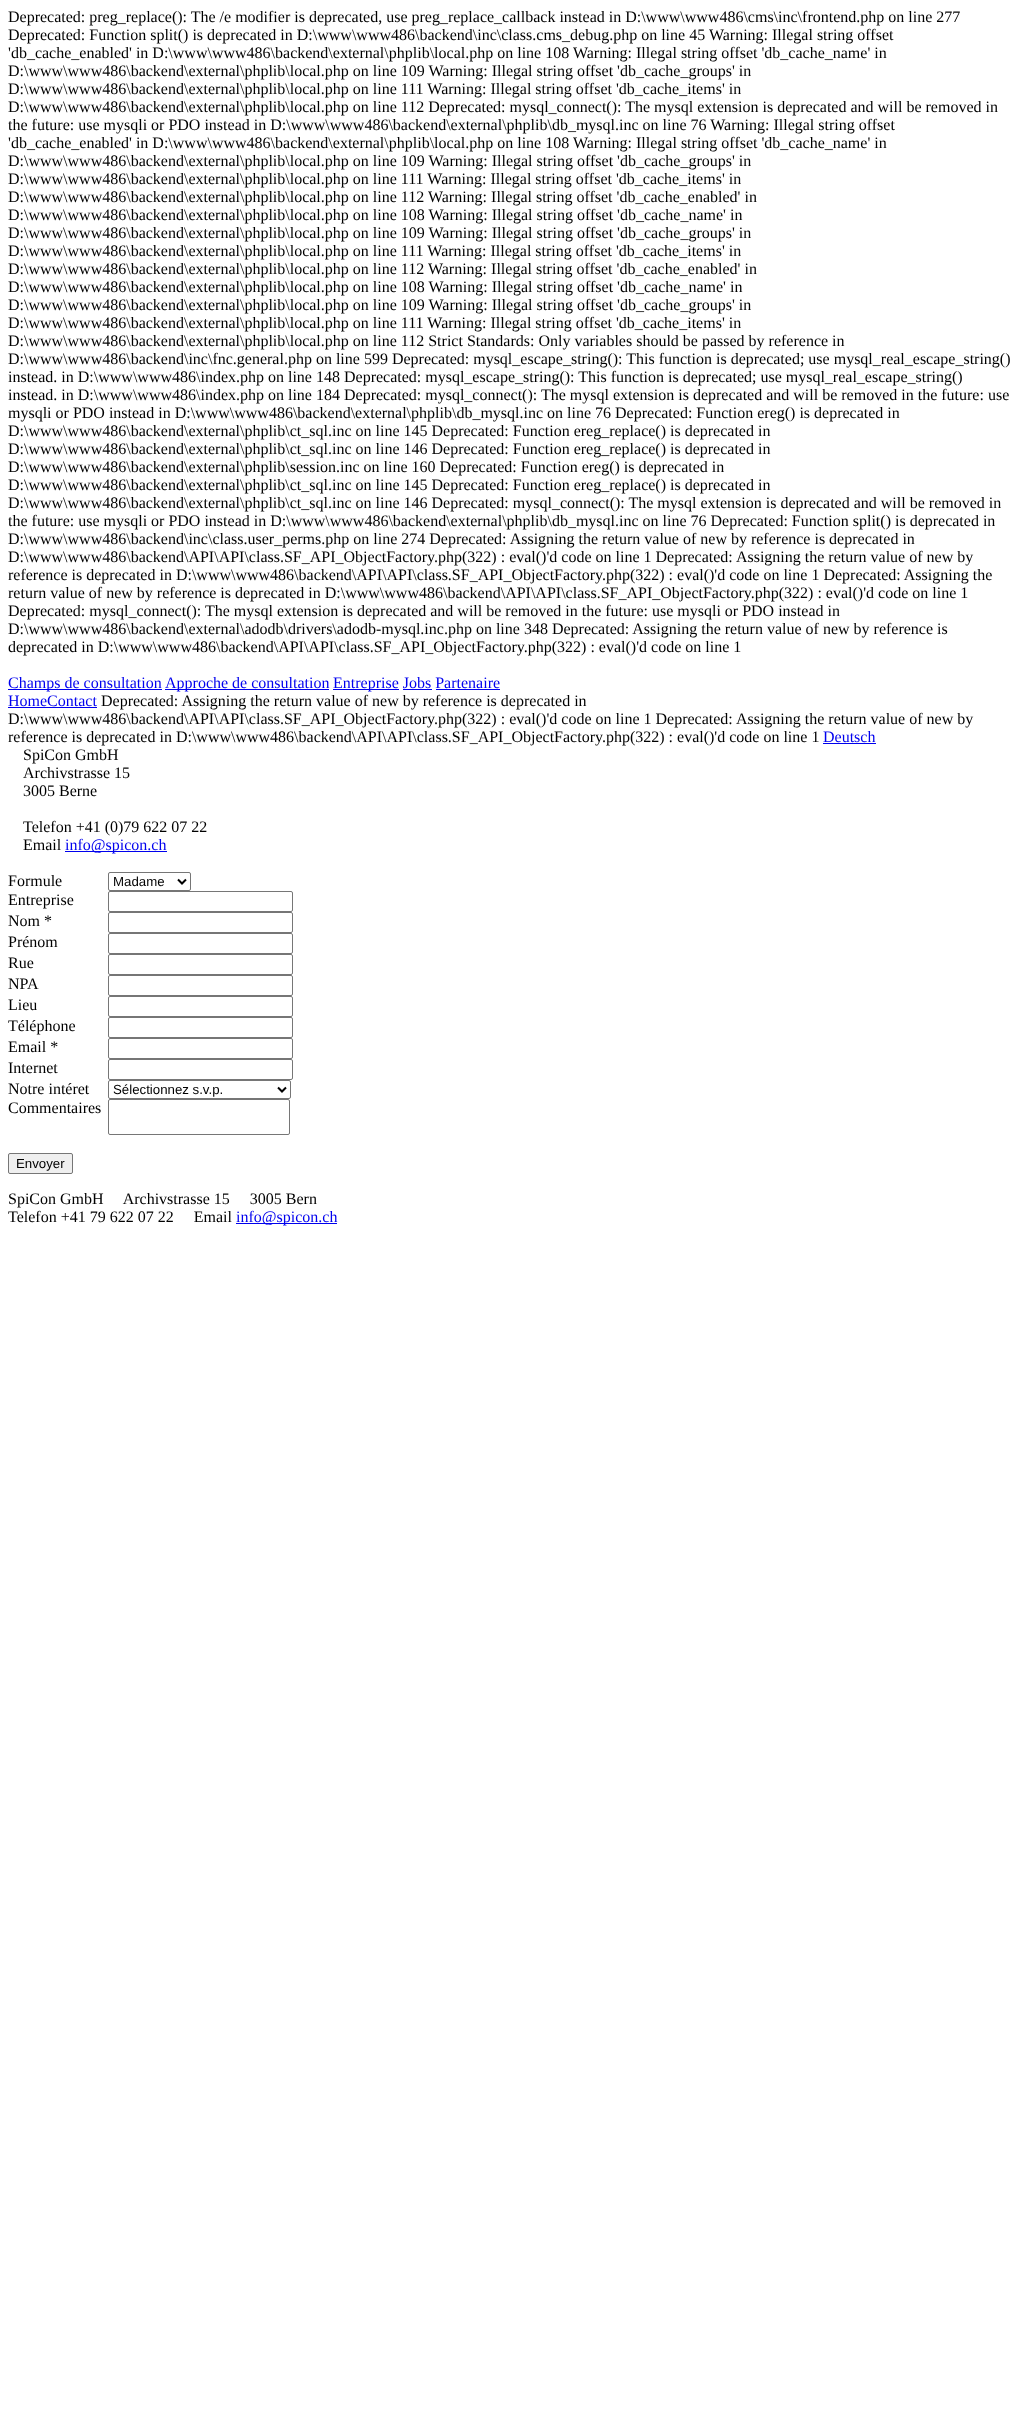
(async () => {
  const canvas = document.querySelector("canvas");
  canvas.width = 1023;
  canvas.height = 2436;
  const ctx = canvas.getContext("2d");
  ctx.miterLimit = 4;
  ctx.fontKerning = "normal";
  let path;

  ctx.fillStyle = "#ffffff";
  ctx.fillRect(0, 0, 1023, 2436);
  for (const [x, y, w, h, color] of [
    [8, 689, 154, 1, "#0000ee"],
    [165, 689, 164, 1, "#0000ee"],
    [333, 689, 66, 1, "#0000ee"],
    [403, 689, 29, 1, "#0000ee"],
    [436, 689, 64, 1, "#0000ee"],
    [8, 707, 89, 1, "#0000ee"],
    [823, 743, 53, 1, "#0000ee"],
    [65, 851, 102, 1, "#0000ee"],
  ]) {
    ctx.fillStyle = color;
    ctx.fillRect(x, y, w, h);
  }
  ctx.beginPath();
  ctx.roundRect(108.5, 872.5, 82, 18, 1.5);
  ctx.strokeStyle = "#767676";
  ctx.stroke();
  path = new Path2D("M178 879.5L182 883.5L186 879.5");
  ctx.strokeStyle = "#000000";
  ctx.lineWidth = 2;
  ctx.stroke(path);
  ctx.beginPath();
  ctx.roundRect(108.5, 891.5, 184, 20, 1.5);
  ctx.strokeStyle = "#767676";
  ctx.lineWidth = 1;
  ctx.stroke();
  ctx.beginPath();
  ctx.roundRect(108.5, 912.5, 184, 20, 1.5);
  ctx.stroke();
  ctx.beginPath();
  ctx.roundRect(108.5, 933.5, 184, 20, 1.5);
  ctx.stroke();
  ctx.beginPath();
  ctx.roundRect(108.5, 954.5, 184, 20, 1.5);
  ctx.stroke();
  ctx.beginPath();
  ctx.roundRect(108.5, 975.5, 184, 20, 1.5);
  ctx.stroke();
  ctx.beginPath();
  ctx.roundRect(108.5, 996.5, 184, 20, 1.5);
  ctx.stroke();
  ctx.beginPath();
  ctx.roundRect(108.5, 1017.5, 184, 20, 1.5);
  ctx.stroke();
  ctx.beginPath();
  ctx.roundRect(108.5, 1038.5, 184, 20, 1.5);
  ctx.stroke();
  ctx.beginPath();
  ctx.roundRect(108.5, 1059.5, 184, 20, 1.5);
  ctx.stroke();
  ctx.beginPath();
  ctx.roundRect(108.5, 1080.5, 182, 18, 1.5);
  ctx.stroke();
  path = new Path2D("M278 1087.5L282 1091.5L286 1087.5");
  ctx.strokeStyle = "#000000";
  ctx.lineWidth = 2;
  ctx.stroke(path);
  ctx.beginPath();
  ctx.roundRect(108.5, 1099.5, 181, 35, 1.5);
  ctx.strokeStyle = "#767676";
  ctx.lineWidth = 1;
  ctx.stroke();
  ctx.fillStyle = "#efefef";
  ctx.beginPath();
  ctx.roundRect(8.5, 1153.5, 64, 20, 1.5);
  ctx.fill();
  ctx.stroke();
  ctx.fillStyle = "#0000ee";
  ctx.fillRect(236, 1223, 101, 1);
  ctx.font = "16px Liberation Serif";
  ctx.fillStyle = "#000000";
  for (const [text, x, y] of [
    ["Deprecated: preg_replace(): The /e modifier is deprecated, use preg_replace_callback instead in D:\\www\\www486\\cms\\inc\\frontend.php on line 277", 8, 22],
    ["Deprecated: Function split() is deprecated in D:\\www\\www486\\backend\\inc\\class.cms_debug.php on line 45 Warning: Illegal string offset", 8, 40],
    ["'db_cache_enabled' in D:\\www\\www486\\backend\\external\\phplib\\local.php on line 108 Warning: Illegal string offset 'db_cache_name' in", 8, 58],
    ["D:\\www\\www486\\backend\\external\\phplib\\local.php on line 109 Warning: Illegal string offset 'db_cache_groups' in", 8, 76],
    ["D:\\www\\www486\\backend\\external\\phplib\\local.php on line 111 Warning: Illegal string offset 'db_cache_items' in", 8, 94],
    ["D:\\www\\www486\\backend\\external\\phplib\\local.php on line 112 Deprecated: mysql_connect(): The mysql extension is deprecated and will be removed in", 8, 112],
    ["the future: use mysqli or PDO instead in D:\\www\\www486\\backend\\external\\phplib\\db_mysql.inc on line 76 Warning: Illegal string offset", 8, 130],
    ["'db_cache_enabled' in D:\\www\\www486\\backend\\external\\phplib\\local.php on line 108 Warning: Illegal string offset 'db_cache_name' in", 8, 148],
    ["D:\\www\\www486\\backend\\external\\phplib\\local.php on line 109 Warning: Illegal string offset 'db_cache_groups' in", 8, 166],
    ["D:\\www\\www486\\backend\\external\\phplib\\local.php on line 111 Warning: Illegal string offset 'db_cache_items' in", 8, 184],
    ["D:\\www\\www486\\backend\\external\\phplib\\local.php on line 112 Warning: Illegal string offset 'db_cache_enabled' in", 8, 202],
    ["D:\\www\\www486\\backend\\external\\phplib\\local.php on line 108 Warning: Illegal string offset 'db_cache_name' in", 8, 220],
    ["D:\\www\\www486\\backend\\external\\phplib\\local.php on line 109 Warning: Illegal string offset 'db_cache_groups' in", 8, 238],
    ["D:\\www\\www486\\backend\\external\\phplib\\local.php on line 111 Warning: Illegal string offset 'db_cache_items' in", 8, 256],
    ["D:\\www\\www486\\backend\\external\\phplib\\local.php on line 112 Warning: Illegal string offset 'db_cache_enabled' in", 8, 274],
    ["D:\\www\\www486\\backend\\external\\phplib\\local.php on line 108 Warning: Illegal string offset 'db_cache_name' in", 8, 292],
    ["D:\\www\\www486\\backend\\external\\phplib\\local.php on line 109 Warning: Illegal string offset 'db_cache_groups' in", 8, 310],
    ["D:\\www\\www486\\backend\\external\\phplib\\local.php on line 111 Warning: Illegal string offset 'db_cache_items' in", 8, 328],
    ["D:\\www\\www486\\backend\\external\\phplib\\local.php on line 112 Strict Standards: Only variables should be passed by reference in", 8, 346],
    ["D:\\www\\www486\\backend\\inc\\fnc.general.php on line 599 Deprecated: mysql_escape_string(): This function is deprecated; use mysql_real_escape_string()", 8, 364],
    ["instead. in D:\\www\\www486\\index.php on line 148 Deprecated: mysql_escape_string(): This function is deprecated; use mysql_real_escape_string()", 8, 382],
    ["instead. in D:\\www\\www486\\index.php on line 184 Deprecated: mysql_connect(): The mysql extension is deprecated and will be removed in the future: use", 8, 400],
    ["mysqli or PDO instead in D:\\www\\www486\\backend\\external\\phplib\\db_mysql.inc on line 76 Deprecated: Function ereg() is deprecated in", 8, 418],
    ["D:\\www\\www486\\backend\\external\\phplib\\ct_sql.inc on line 145 Deprecated: Function ereg_replace() is deprecated in", 8, 436],
    ["D:\\www\\www486\\backend\\external\\phplib\\ct_sql.inc on line 146 Deprecated: Function ereg_replace() is deprecated in", 8, 454],
    ["D:\\www\\www486\\backend\\external\\phplib\\session.inc on line 160 Deprecated: Function ereg() is deprecated in", 8, 472],
    ["D:\\www\\www486\\backend\\external\\phplib\\ct_sql.inc on line 145 Deprecated: Function ereg_replace() is deprecated in", 8, 490],
    ["D:\\www\\www486\\backend\\external\\phplib\\ct_sql.inc on line 146 Deprecated: mysql_connect(): The mysql extension is deprecated and will be removed in", 8, 508],
    ["the future: use mysqli or PDO instead in D:\\www\\www486\\backend\\external\\phplib\\db_mysql.inc on line 76 Deprecated: Function split() is deprecated in", 8, 526],
    ["D:\\www\\www486\\backend\\inc\\class.user_perms.php on line 274 Deprecated: Assigning the return value of new by reference is deprecated in", 8, 544],
    ["D:\\www\\www486\\backend\\API\\API\\class.SF_API_ObjectFactory.php(322) : eval()'d code on line 1 Deprecated: Assigning the return value of new by", 8, 562],
    ["reference is deprecated in D:\\www\\www486\\backend\\API\\API\\class.SF_API_ObjectFactory.php(322) : eval()'d code on line 1 Deprecated: Assigning the", 8, 580],
    ["return value of new by reference is deprecated in D:\\www\\www486\\backend\\API\\API\\class.SF_API_ObjectFactory.php(322) : eval()'d code on line 1", 8, 598],
    ["Deprecated: mysql_connect(): The mysql extension is deprecated and will be removed in the future: use mysqli or PDO instead in", 8, 616],
    ["D:\\www\\www486\\backend\\external\\adodb\\drivers\\adodb-mysql.inc.php on line 348 Deprecated: Assigning the return value of new by reference is", 8, 634],
    ["deprecated in D:\\www\\www486\\backend\\API\\API\\class.SF_API_ObjectFactory.php(322) : eval()'d code on line 1", 8, 652],
  ]) {
    ctx.fillText(text, x, y);
  }
  ctx.fillStyle = "#0000ee";
  for (const [text, x, y] of [
    ["Champs de consultation", 8, 688],
    ["Approche de consultation", 165, 688],
    ["Entreprise Jobs Partenaire", 333, 688],
    ["HomeContact", 8, 706],
  ]) {
    ctx.fillText(text, x, y);
  }
  ctx.fillStyle = "#000000";
  for (const [text, x, y] of [
    ["Deprecated: Assigning the return value of new by reference is deprecated in", 101, 706],
    ["D:\\www\\www486\\backend\\API\\API\\class.SF_API_ObjectFactory.php(322) : eval()'d code on line 1 Deprecated: Assigning the return value of new by", 8, 724],
    ["reference is deprecated in D:\\www\\www486\\backend\\API\\API\\class.SF_API_ObjectFactory.php(322) : eval()'d code on line 1", 8, 742],
  ]) {
    ctx.fillText(text, x, y);
  }
  ctx.fillStyle = "#0000ee";
  ctx.fillText("Deutsch", 823, 742);
  ctx.fillStyle = "#000000";
  for (const [text, x, y] of [
    ["SpiCon GmbH", 23, 760],
    ["Archivstrasse 15", 23, 778],
    ["3005 Berne", 23, 796],
    ["Telefon +41 (0)79 622 07 22", 23, 832],
    ["Email", 23, 850],
  ]) {
    ctx.fillText(text, x, y);
  }
  ctx.fillStyle = "#0000ee";
  ctx.fillText("info@spicon.ch", 65, 850);
  ctx.fillStyle = "#000000";
  ctx.fillText("Formule", 8, 886);
  ctx.font = "13.25px Liberation Sans";
  ctx.fillText("Madame", 113, 886);
  ctx.font = "16px Liberation Serif";
  for (const [text, x, y] of [
    ["Entreprise", 8, 905],
    ["Nom *", 8, 926],
    ["Prénom", 8, 947],
    ["Rue", 8, 968],
    ["NPA", 8, 989],
    ["Lieu", 8, 1010],
    ["Téléphone", 8, 1031],
    ["Email *", 8, 1052],
    ["Internet", 8, 1073],
    ["Notre intéret", 8, 1094],
  ]) {
    ctx.fillText(text, x, y);
  }
  ctx.font = "13.25px Liberation Sans";
  ctx.fillText("Sélectionnez s.v.p.", 113, 1094);
  ctx.font = "16px Liberation Serif";
  ctx.fillText("Commentaires", 8, 1113);
  ctx.font = "13.25px Liberation Sans";
  ctx.fillText("Envoyer", 16, 1168);
  ctx.font = "16px Liberation Serif";
  ctx.fillText("SpiCon GmbH     Archivstrasse 15     3005 Bern", 8, 1204);
  ctx.fillText("Telefon +41 79 622 07 22     Email", 8, 1222);
  ctx.fillStyle = "#0000ee";
  ctx.fillText("info@spicon.ch", 236, 1222);
})();
